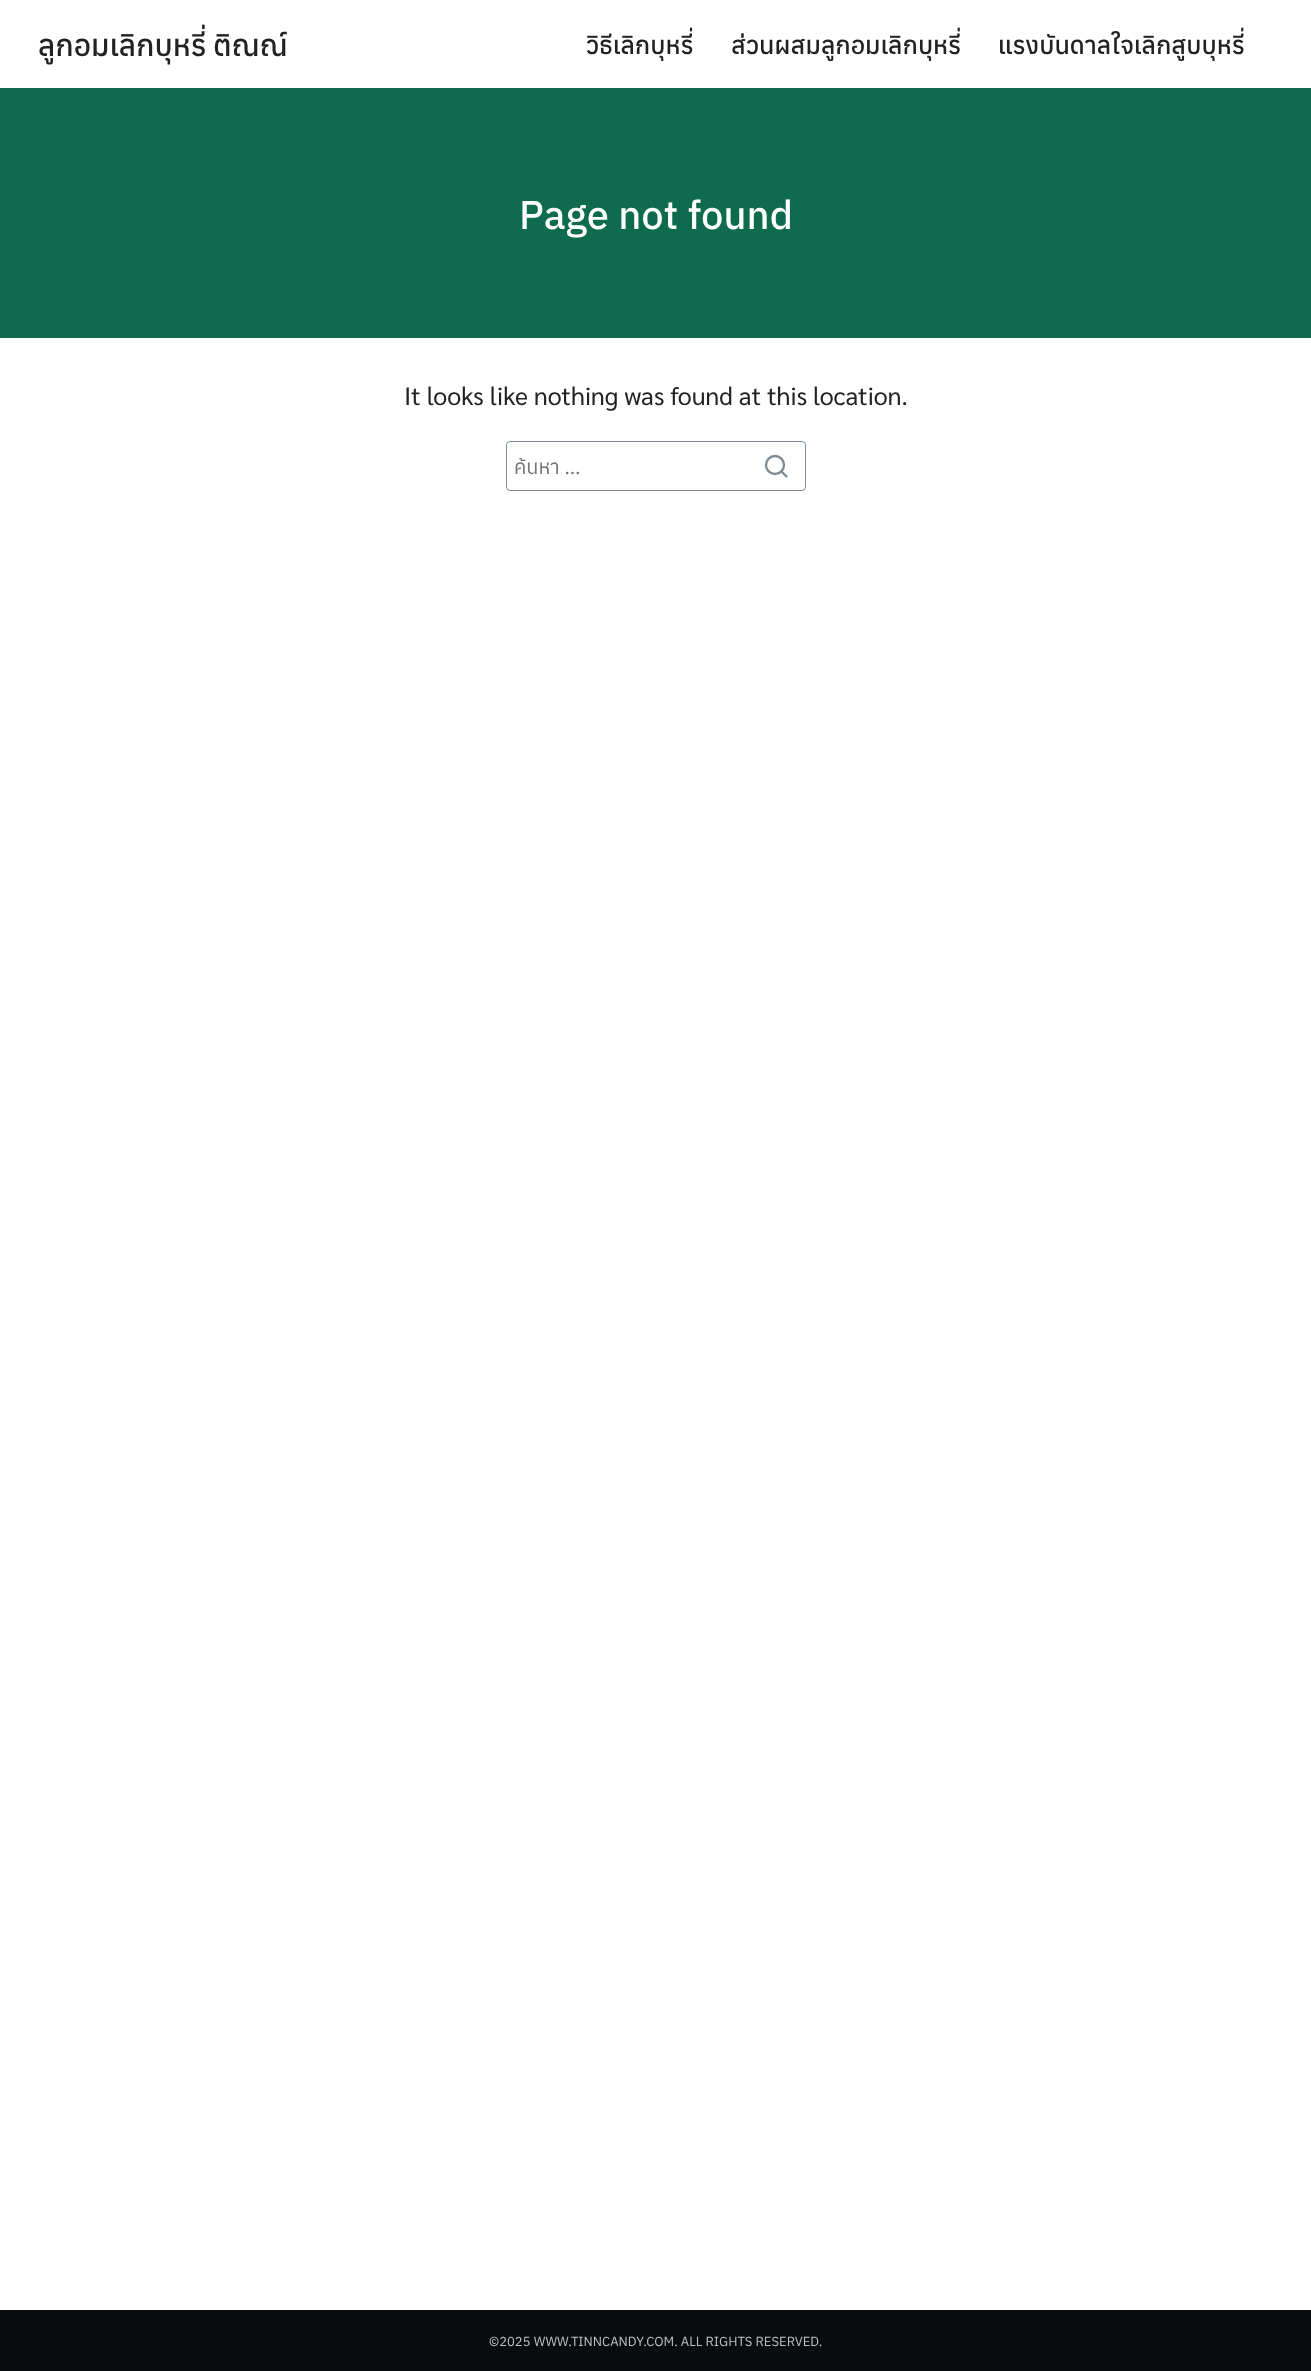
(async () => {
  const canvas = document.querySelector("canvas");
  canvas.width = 1311;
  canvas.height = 2371;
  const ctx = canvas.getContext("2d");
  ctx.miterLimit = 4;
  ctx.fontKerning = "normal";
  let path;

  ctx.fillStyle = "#ffffff";
  ctx.fillRect(0, 0, 1311, 2371);
  ctx.fillStyle = "#0f6b4e";
  ctx.fillRect(0, 88, 1311, 250);
  ctx.beginPath();
  ctx.roundRect(506.5, 441.5, 299, 49, 3.5);
  ctx.strokeStyle = "#7e8993";
  ctx.stroke();
  ctx.beginPath();
  ctx.arc(775, 465, 9, 0, Math.PI * 2);
  ctx.lineWidth = 2.3;
  ctx.stroke();
  path = new Path2D("M786.5 476.5L781.5 471.5");
  ctx.lineCap = "round";
  ctx.lineJoin = "round";
  ctx.stroke(path);
  ctx.fillStyle = "#0a0b0c";
  ctx.fillRect(0, 2310, 1311, 61);
  ctx.font = "500 30px Anuphan";
  ctx.fillStyle = "#222222";
  ctx.fillText("ลูกอมเลิกบุหรี่ ติณณ์", 38, 56);
  ctx.font = "500 25px Anuphan";
  for (const [text, x, y] of [
    ["วิธีเลิกบุหรี่", 586, 54],
    ["ส่วนผสมลูกอมเลิกบุหรี่", 731, 54],
    ["แรงบันดาลใจเลิกสูบบุหรี่", 998, 54],
  ]) {
    ctx.fillText(text, x, y);
  }
  ctx.font = "500 40px Anuphan";
  ctx.fillStyle = "#ffffff";
  ctx.fillText("Page not found", 519, 229);
  ctx.font = "25px Sarabun";
  ctx.fillStyle = "#222222";
  ctx.fillText("It looks like nothing was found at this location.", 404, 405);
  ctx.save();
  ctx.beginPath();
  ctx.rect(515, 451, 275, 29);
  ctx.clip();
  ctx.font = "20px Anuphan";
  ctx.fillStyle = "#757575";
  ctx.fillText("ค้นหา …", 514, 474);
  ctx.restore();
  ctx.font = "13.1px Anuphan";
  ctx.fillStyle = "#bbc0c4";
  ctx.fillText("©2025 WWW.TINNCANDY.COM. ALL RIGHTS RESERVED.", 489, 2346);
})();
